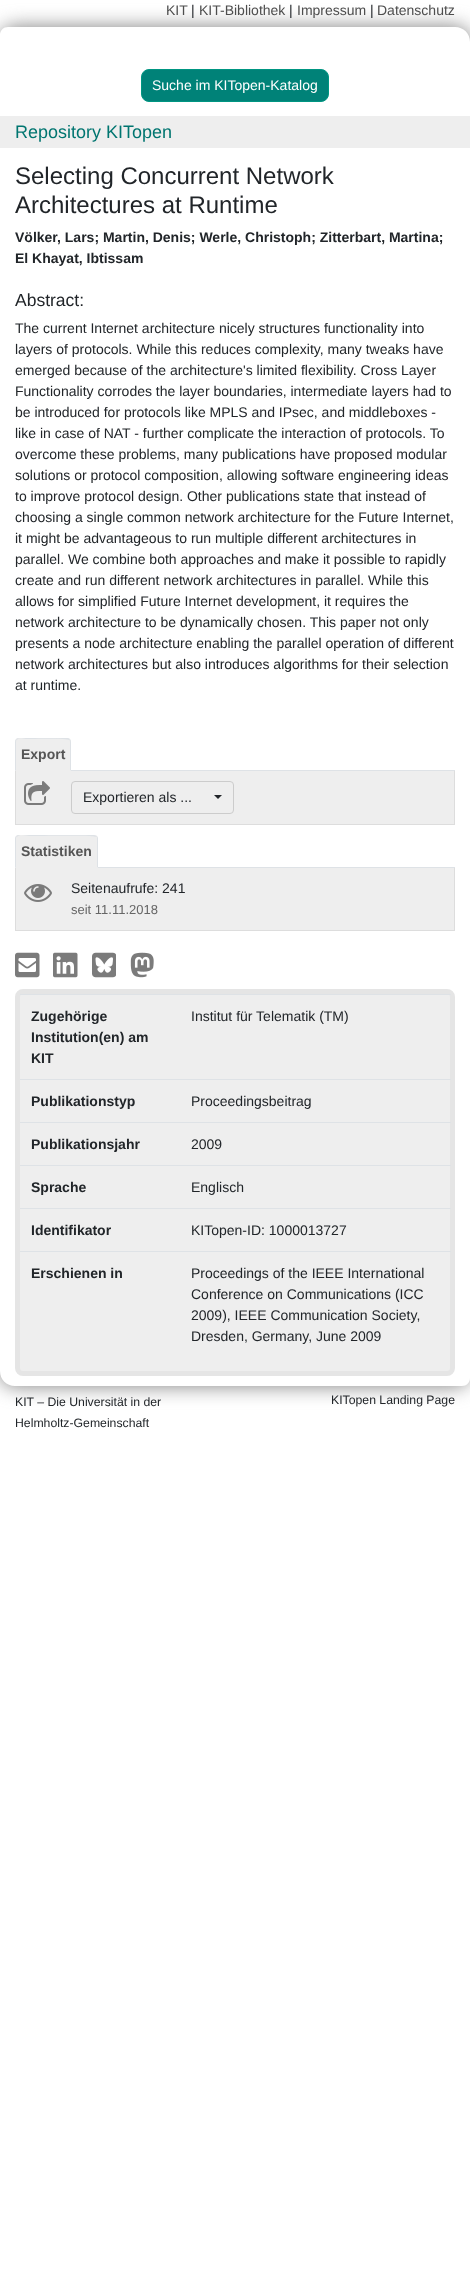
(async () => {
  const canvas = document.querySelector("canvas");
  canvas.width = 470;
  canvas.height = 2293;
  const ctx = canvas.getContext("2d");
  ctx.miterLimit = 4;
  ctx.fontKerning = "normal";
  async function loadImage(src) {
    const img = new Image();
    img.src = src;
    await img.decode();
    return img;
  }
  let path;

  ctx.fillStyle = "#ffffff";
  ctx.fillRect(0, 0, 470, 2293);
  ctx.save();
  path = new Path2D("M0 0H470V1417H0ZM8 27H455C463.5 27 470 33.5 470 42V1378C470 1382.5 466.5 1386 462 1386H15C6.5 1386 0 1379.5 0 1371V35C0 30.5 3.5 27 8 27Z");
  ctx.clip(path, "evenodd");
  ctx.fillStyle = "#808080";
  ctx.filter = "blur(10px)";
  ctx.beginPath();
  ctx.roundRect(0, 27, 470, 1359, 15);
  ctx.fill();
  ctx.filter = "none";
  ctx.restore();
  ctx.fillStyle = "#008278";
  ctx.beginPath();
  ctx.roundRect(141.5, 69.5, 187, 32, 7.5);
  ctx.fill();
  ctx.strokeStyle = "#009682";
  ctx.stroke();
  ctx.fillStyle = "#eeeeee";
  ctx.fillRect(0, 116, 470, 32);
  ctx.fillStyle = "#dee2e6";
  ctx.fillRect(71, 770, 384, 1);
  ctx.fillStyle = "#eeeeee";
  ctx.beginPath();
  ctx.roundRect(15, 738, 56, 33, [4, 4, 0, 0]);
  ctx.fill();
  ctx.fillStyle = "#dee2e6";
  path = new Path2D("M18 738L16 739L17 740C19 737 23 739 26 739C31 739 68 738 69 740L70 739L68 738Z");
  ctx.fill(path);
  path = new Path2D("M71 771V742C71 741 70.5 740 70 739L69.5 739.5C69.5 740 70 741 70 742V770Z");
  ctx.fill(path);
  ctx.fillStyle = "#eeeeee";
  path = new Path2D("M71 771L70 770H16L15 771Z");
  ctx.fill(path);
  ctx.fillStyle = "#dee2e6";
  path = new Path2D("M15 771L16 770V742C16 741 16.5 740 16.5 739.5L16 739C15.5 740 15 741 15 742Z");
  ctx.fill(path);
  for (const [x, y, w, h, color] of [
    [16, 771, 438, 53, "#eeeeee"],
    [454, 771, 1, 54, "#dddddd"],
    [15, 824, 440, 1, "#dddddd"],
    [15, 771, 1, 54, "#dddddd"],
  ]) {
    ctx.fillStyle = color;
    ctx.fillRect(x, y, w, h);
  }
  ctx.drawImage(await loadImage("img/1.png"), 24, 781, 26, 24);
  ctx.beginPath();
  ctx.roundRect(71.5, 781.5, 162, 32, 3.5);
  ctx.strokeStyle = "#cccccc";
  ctx.stroke();
  ctx.fillStyle = "#212529";
  path = new Path2D("M214 795H222L218 799Z");
  ctx.fill(path);
  ctx.fillStyle = "#dee2e6";
  ctx.fillRect(98, 867, 357, 1);
  ctx.fillStyle = "#eeeeee";
  ctx.beginPath();
  ctx.roundRect(15, 835, 83, 33, [4, 4, 0, 0]);
  ctx.fill();
  ctx.fillStyle = "#dee2e6";
  path = new Path2D("M18 835L16 836L17 837C20 833 26 836 31 836C38 836 94 835 96 837L97 836L94 835Z");
  ctx.fill(path);
  path = new Path2D("M98 868V838L97 836L96.5 836.5L97 837.5V867Z");
  ctx.fill(path);
  ctx.fillStyle = "#eeeeee";
  path = new Path2D("M98 868L97 867H16L15 868Z");
  ctx.fill(path);
  ctx.fillStyle = "#dee2e6";
  path = new Path2D("M15 868L16 867V838L16.5 836.5L16 836L15 838Z");
  ctx.fill(path);
  for (const [x, y, w, h, color] of [
    [16, 868, 438, 62, "#eeeeee"],
    [454, 868, 1, 63, "#dddddd"],
    [15, 930, 440, 1, "#dddddd"],
    [15, 868, 1, 63, "#dddddd"],
  ]) {
    ctx.fillStyle = color;
    ctx.fillRect(x, y, w, h);
  }
  ctx.drawImage(await loadImage("img/2.png"), 24, 884, 28, 18);
  ctx.drawImage(await loadImage("img/3.png"), 15, 952, 25, 26);
  ctx.drawImage(await loadImage("img/4.png"), 53, 952, 25, 26);
  ctx.drawImage(await loadImage("img/5.png"), 92, 952, 24, 26);
  ctx.drawImage(await loadImage("img/6.png"), 130, 952, 24, 26);
  ctx.fillStyle = "#eeeeee";
  ctx.beginPath();
  ctx.roundRect(17.5, 991.5, 435, 382, 5.5);
  ctx.fill();
  ctx.strokeStyle = "#e5e5e5";
  ctx.lineWidth = 5;
  ctx.stroke();
  for (const [x, y, w, h, color] of [
    [20, 994, 431, 1, "#dee2e6"],
    [20, 1079, 431, 1, "#dee2e6"],
    [20, 1122, 431, 1, "#dee2e6"],
    [20, 1165, 431, 1, "#dee2e6"],
    [20, 1208, 431, 1, "#dee2e6"],
    [20, 1251, 431, 1, "#dee2e6"],
  ]) {
    ctx.fillStyle = color;
    ctx.fillRect(x, y, w, h);
  }
  ctx.font = "14px Liberation Sans";
  ctx.fillStyle = "#4d4d4d";
  ctx.fillText("KIT", 166, 15);
  ctx.fillStyle = "#212529";
  ctx.fillText("|", 191, 15);
  ctx.fillStyle = "#4d4d4d";
  ctx.fillText("KIT-Bibliothek", 199, 15);
  ctx.fillStyle = "#212529";
  ctx.fillText("|", 289, 15);
  ctx.fillStyle = "#4d4d4d";
  ctx.fillText("Impressum", 297, 15);
  ctx.fillStyle = "#212529";
  ctx.fillText("|", 370, 15);
  ctx.fillStyle = "#4d4d4d";
  ctx.fillText("Datenschutz", 377, 15);
  ctx.fillStyle = "#ffffff";
  ctx.fillText("Suche im KITopen-Katalog", 152, 90);
  ctx.font = "18px Liberation Sans";
  ctx.fillStyle = "#007570";
  ctx.fillText("Repository KITopen", 15, 138);
  ctx.font = "24px Liberation Sans";
  ctx.fillStyle = "#212529";
  ctx.fillText("Selecting Concurrent Network", 15, 184);
  ctx.fillText("Architectures at Runtime", 15, 213);
  ctx.font = "bold 14px Liberation Sans";
  ctx.fillText("Völker, Lars; Martin, Denis; Werle, Christoph; Zitterbart, Martina;", 15, 242);
  ctx.fillText("El Khayat, Ibtissam", 15, 263);
  ctx.font = "17.5px Liberation Sans";
  ctx.fillText("Abstract:", 15, 306);
  ctx.font = "14px Liberation Sans";
  for (const [text, x, y] of [
    ["The current Internet architecture nicely structures functionality into", 15, 333],
    ["layers of protocols. While this reduces complexity, many tweaks have", 15, 354],
    ["emerged because of the architecture's limited flexibility. Cross Layer", 15, 375],
    ["Functionality corrodes the layer boundaries, intermediate layers had to", 15, 396],
    ["be introduced for protocols like MPLS and IPsec, and middleboxes -", 15, 417],
    ["like in case of NAT - further complicate the interaction of protocols. To", 15, 438],
    ["overcome these problems, many publications have proposed modular", 15, 459],
    ["solutions or protocol composition, allowing software engineering ideas", 15, 480],
    ["to improve protocol design. Other publications state that instead of", 15, 501],
    ["choosing a single common network architecture for the Future Internet,", 15, 522],
    ["it might be advantageous to run multiple different architectures in", 15, 543],
    ["parallel. We combine both approaches and make it possible to rapidly", 15, 564],
    ["create and run different network architectures in parallel. While this", 15, 585],
    ["allows for simplified Future Internet development, it requires the", 15, 606],
    ["network architecture to be dynamically chosen. This paper not only", 15, 627],
    ["presents a node architecture enabling the parallel operation of different", 15, 648],
    ["network architectures but also introduces algorithms for their selection", 15, 669],
    ["at runtime.", 15, 690],
  ]) {
    ctx.fillText(text, x, y);
  }
  ctx.font = "bold 14px Liberation Sans";
  ctx.fillStyle = "#555555";
  ctx.fillText("Export", 21, 759);
  ctx.font = "14px Liberation Sans";
  ctx.fillStyle = "#212529";
  ctx.fillText("Exportieren als ...", 83, 802);
  ctx.font = "bold 14px Liberation Sans";
  ctx.fillStyle = "#555555";
  ctx.fillText("Statistiken", 21, 856);
  ctx.font = "14px Liberation Sans";
  ctx.fillStyle = "#212529";
  ctx.fillText("Seitenaufrufe: 241", 71, 893);
  ctx.font = "13px Liberation Sans";
  ctx.fillStyle = "#666666";
  ctx.fillText("seit 11.11.2018", 71, 914);
  ctx.font = "bold 14px Liberation Sans";
  ctx.fillStyle = "#212529";
  for (const [text, x, y] of [
    ["Zugehörige", 31, 1021],
    ["Institution(en) am", 31, 1042],
    ["KIT", 31, 1063],
  ]) {
    ctx.fillText(text, x, y);
  }
  ctx.font = "14px Liberation Sans";
  ctx.fillText("Institut für Telematik (TM)", 191, 1021);
  ctx.font = "bold 14px Liberation Sans";
  ctx.fillText("Publikationstyp", 31, 1106);
  ctx.font = "14px Liberation Sans";
  ctx.fillText("Proceedingsbeitrag", 191, 1106);
  ctx.font = "bold 14px Liberation Sans";
  ctx.fillText("Publikationsjahr", 31, 1149);
  ctx.font = "14px Liberation Sans";
  ctx.fillText("2009", 191, 1149);
  ctx.font = "bold 14px Liberation Sans";
  ctx.fillText("Sprache", 31, 1192);
  ctx.font = "14px Liberation Sans";
  ctx.fillText("Englisch", 191, 1192);
  ctx.font = "bold 14px Liberation Sans";
  ctx.fillText("Identifikator", 31, 1235);
  ctx.font = "14px Liberation Sans";
  ctx.fillText("KITopen-ID: 1000013727", 191, 1235);
  ctx.font = "bold 14px Liberation Sans";
  ctx.fillText("Erschienen in", 31, 1278);
  ctx.font = "14px Liberation Sans";
  for (const [text, x, y] of [
    ["Proceedings of the IEEE International", 191, 1278],
    ["Conference on Communications (ICC", 191, 1299],
    ["2009), IEEE Communication Society,", 191, 1320],
    ["Dresden, Germany, June 2009", 191, 1341],
  ]) {
    ctx.fillText(text, x, y);
  }
  ctx.font = "12.25px Liberation Sans";
  for (const [text, x, y] of [
    ["KIT – Die Universität in der", 15, 1406],
    ["Helmholtz-Gemeinschaft", 15, 1427],
    ["KITopen Landing Page", 331, 1404],
  ]) {
    ctx.fillText(text, x, y);
  }
})();
